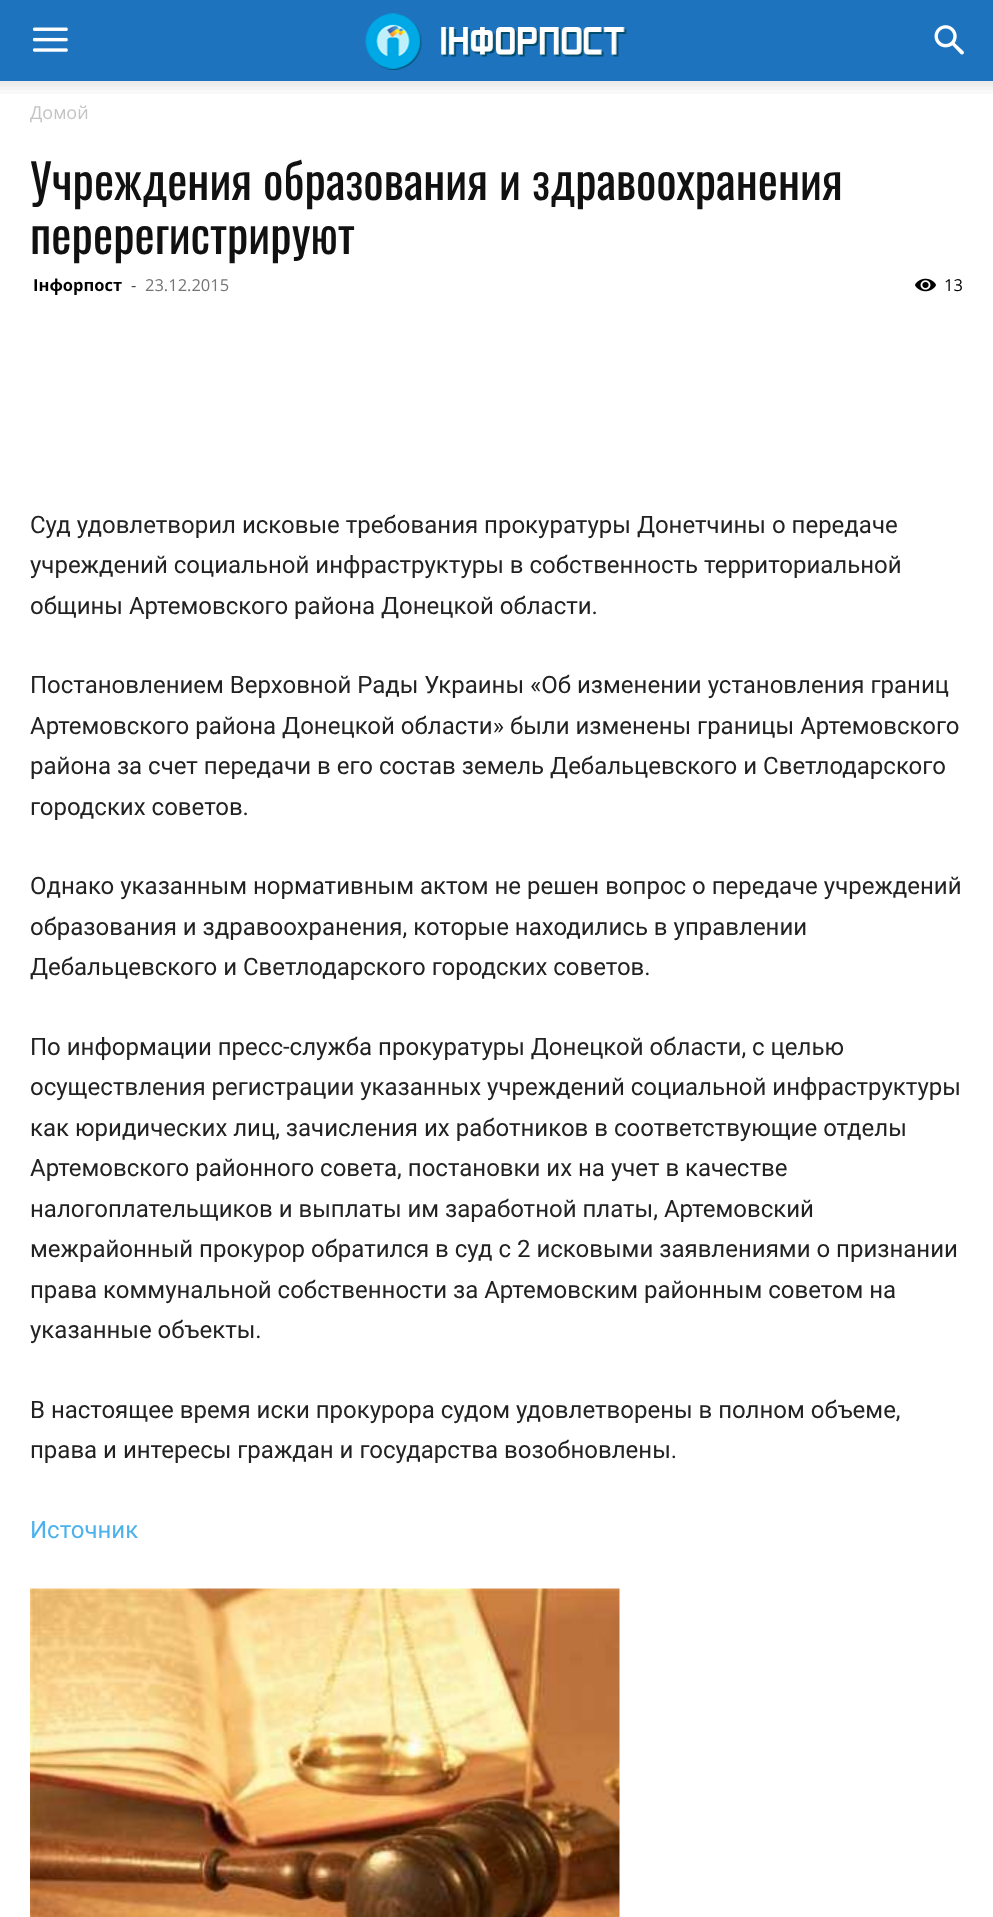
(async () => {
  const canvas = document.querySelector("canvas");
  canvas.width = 993;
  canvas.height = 1917;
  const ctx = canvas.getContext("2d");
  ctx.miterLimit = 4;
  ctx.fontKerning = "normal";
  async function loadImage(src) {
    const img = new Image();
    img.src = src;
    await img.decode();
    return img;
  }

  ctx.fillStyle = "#ffffff";
  ctx.fillRect(0, 0, 993, 1917);
  ctx.fillStyle = "#1e73be";
  ctx.fillRect(0, 0, 993, 81);
  ctx.drawImage(await loadImage("img/1.png"), 33, 27, 35, 25);
  ctx.drawImage(await loadImage("img/2.png"), 365, 13, 262, 57);
  ctx.drawImage(await loadImage("img/3.png"), 934, 25, 30, 30);
  ctx.drawImage(await loadImage("img/4.png"), 0, 81, 993, 13);
  ctx.drawImage(await loadImage("img/5.png"), 915, 278, 21, 14);
  ctx.drawImage(await loadImage("img/6.png"), 30, 1588, 590, 329);
  ctx.font = "18px Open Sans";
  ctx.fillStyle = "#c3c3c3";
  ctx.fillText("Домой", 30, 119);
  ctx.font = "48px Oswald";
  ctx.fillStyle = "#111111";
  ctx.fillText("Учреждения образования и здравоохранения", 30, 200);
  ctx.fillText("перерегистрируют", 30, 254);
  ctx.font = "bold 16.5px Open Sans";
  ctx.fillStyle = "#000000";
  ctx.fillText("Інфорпост", 33, 291);
  ctx.font = "16.5px Open Sans";
  ctx.fillStyle = "#444444";
  ctx.fillText("-", 131, 291);
  ctx.fillStyle = "#767676";
  ctx.fillText("23.12.2015", 145, 291);
  ctx.fillStyle = "#000000";
  ctx.fillText("13", 944, 291);
  ctx.font = "24px Roboto";
  ctx.fillStyle = "#222222";
  for (const [text, x, y] of [
    ["Суд удовлетворил исковые требования прокуратуры Донетчины о передаче", 30, 533],
    ["учреждений социальной инфраструктуры в собственность территориальной", 30, 573],
    ["общины Артемовского района Донецкой области.", 30, 614],
    ["Постановлением Верховной Рады Украины «Об изменении установления границ", 30, 693],
    ["Артемовского района Донецкой области» были изменены границы Артемовского", 30, 734],
    ["района за счет передачи в его состав земель Дебальцевского и Светлодарского", 30, 774],
    ["городских советов.", 30, 815],
    ["Однако указанным нормативным актом не решен вопрос о передаче учреждений", 30, 894],
    ["образования и здравоохранения, которые находились в управлении", 30, 935],
    ["Дебальцевского и Светлодарского городских советов.", 30, 975],
    ["По информации пресс-служба прокуратуры Донецкой области, с целью", 30, 1055],
    ["осуществления регистрации указанных учреждений социальной инфраструктуры", 30, 1095],
    ["как юридических лиц, зачисления их работников в соответствующие отделы", 30, 1136],
    ["Артемовского районного совета, постановки их на учет в качестве", 30, 1176],
    ["налогоплательщиков и выплаты им заработной платы, Артемовский", 30, 1217],
    ["межрайонный прокурор обратился в суд с 2 исковыми заявлениями о признании", 30, 1257],
    ["права коммунальной собственности за Артемовским районным советом на", 30, 1298],
    ["указанные объекты.", 30, 1338],
    ["В настоящее время иски прокурора судом удовлетворены в полном объеме,", 30, 1418],
    ["права и интересы граждан и государства возобновлены.", 30, 1458],
  ]) {
    ctx.fillText(text, x, y);
  }
  ctx.fillStyle = "#4db2ec";
  ctx.fillText("Источник", 30, 1538);
})();
